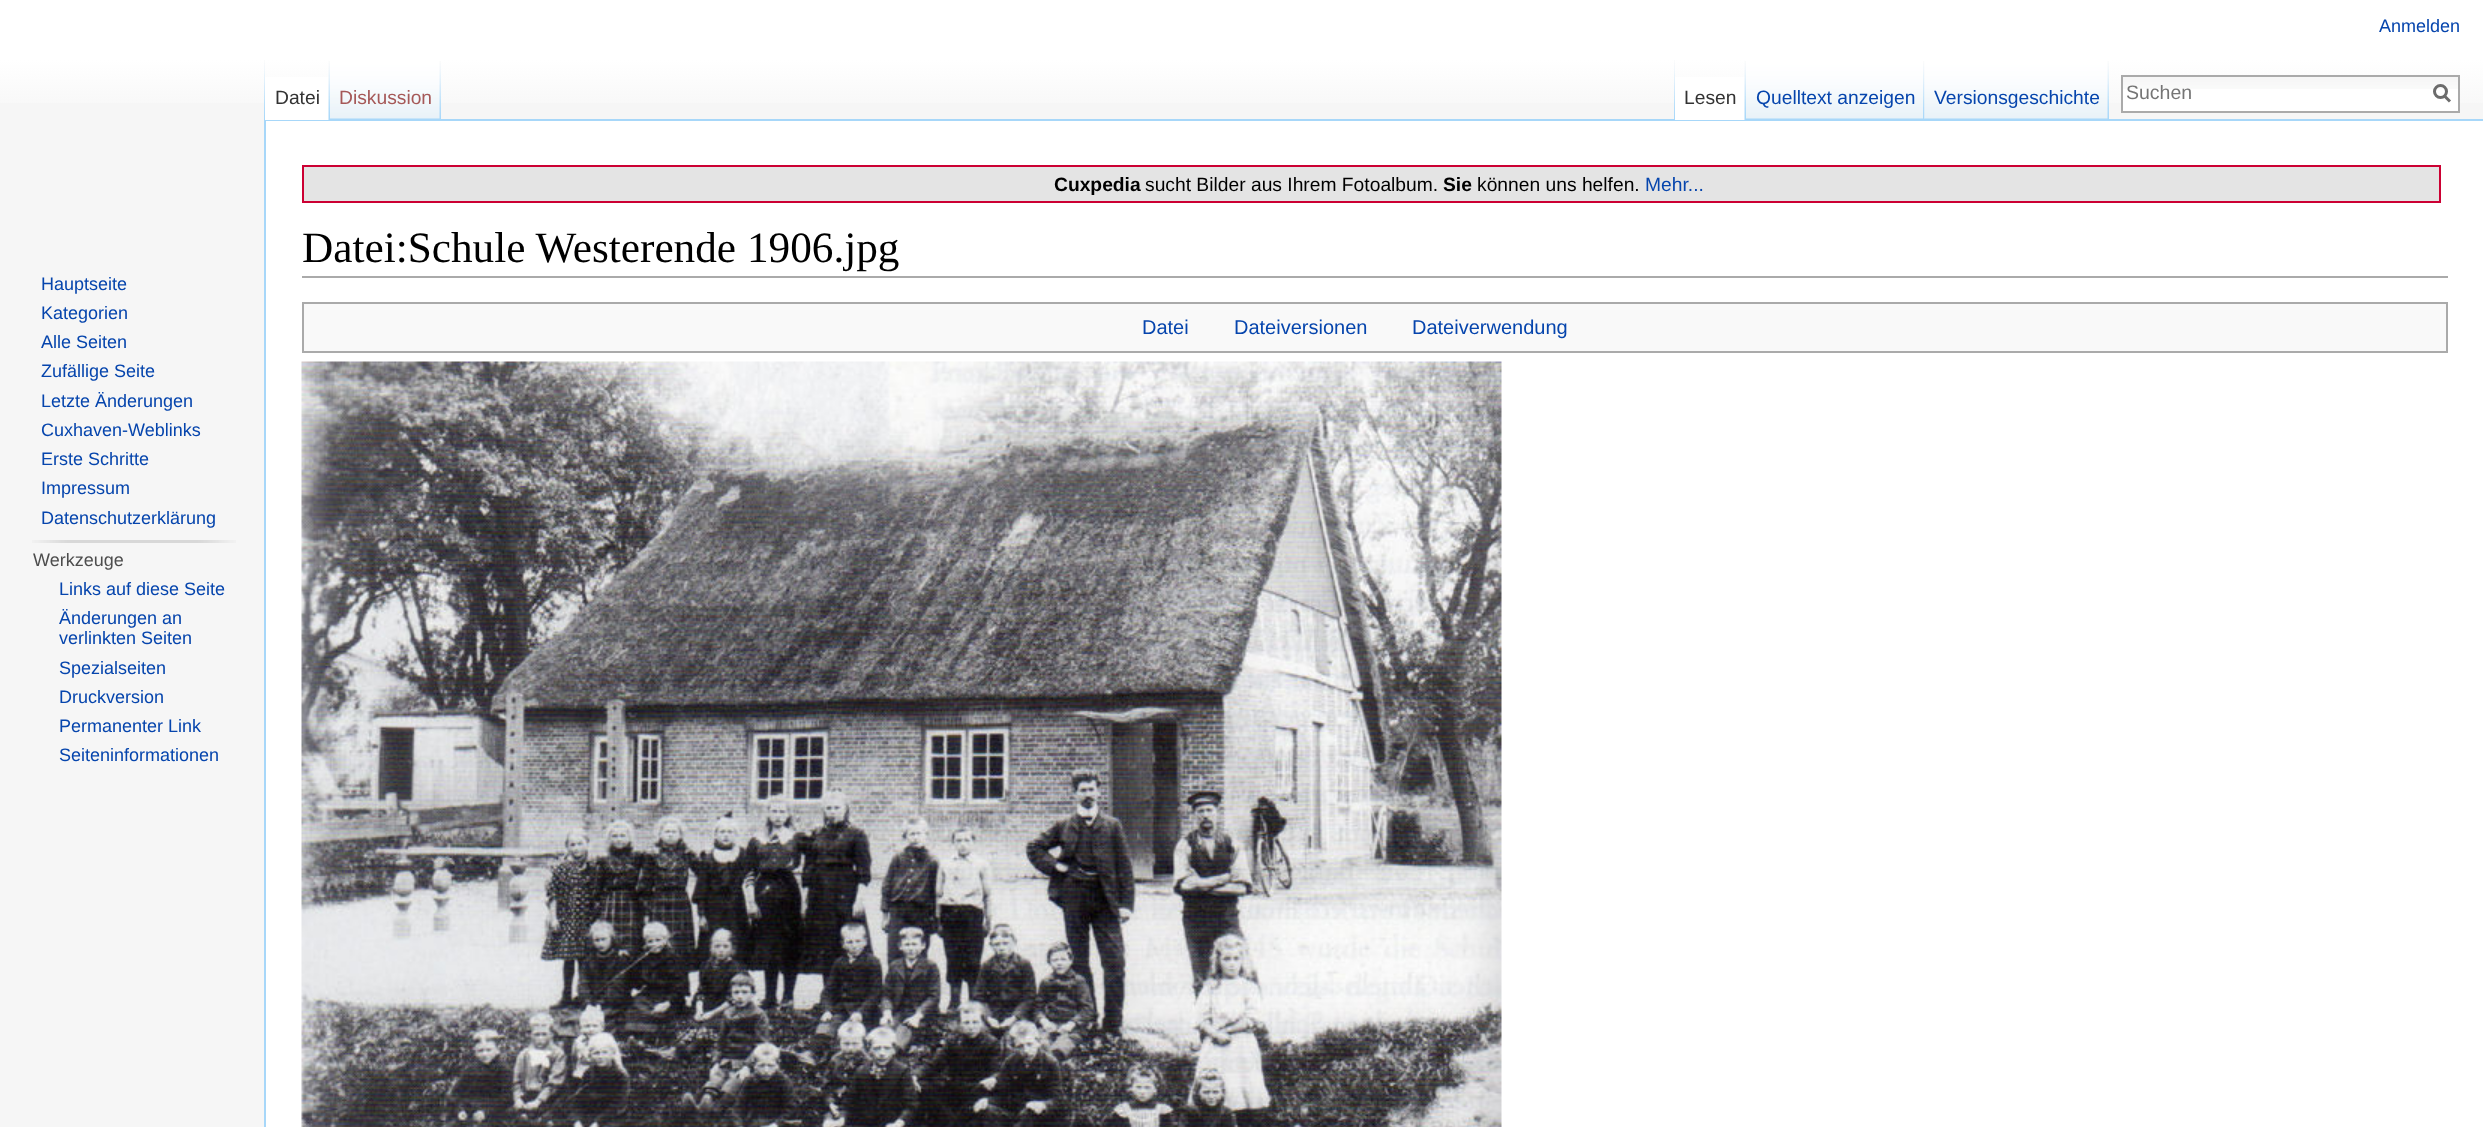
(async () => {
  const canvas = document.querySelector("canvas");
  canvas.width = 2483;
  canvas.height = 1127;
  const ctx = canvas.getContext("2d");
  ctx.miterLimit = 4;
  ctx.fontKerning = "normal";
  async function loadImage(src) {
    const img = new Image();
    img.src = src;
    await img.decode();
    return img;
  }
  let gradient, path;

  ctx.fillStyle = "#f6f6f6";
  ctx.fillRect(0, 0, 2483, 1127);
  gradient = ctx.createLinearGradient(1242, 0, 1242, 120);
  gradient.addColorStop(0.5, "#ffffff");
  gradient.addColorStop(1, "#f6f6f6");
  ctx.fillStyle = gradient;
  ctx.fillRect(0, 0, 2483, 103);
  ctx.drawImage(await loadImage("img/1.png"), 264, 60, 1, 59);
  for (const [x, y, w, h, color] of [
    [264, 119, 2219, 2, "#a7d7f9"],
    [264, 119, 2, 1008, "#a7d7f9"],
    [265, 77, 65, 43, "#ffffff"],
  ]) {
    ctx.fillStyle = color;
    ctx.fillRect(x, y, w, h);
  }
  ctx.drawImage(await loadImage("img/2.png"), 328, 61, 2, 59);
  ctx.drawImage(await loadImage("img/3.png"), 330, 60, 111, 60);
  ctx.drawImage(await loadImage("img/4.png"), 439, 61, 2, 58);
  ctx.drawImage(await loadImage("img/1.png"), 1674, 60, 1, 59);
  ctx.fillRect(1675, 77, 71, 43);
  ctx.drawImage(await loadImage("img/2.png"), 1744, 61, 2, 59);
  ctx.drawImage(await loadImage("img/5.png"), 1746, 60, 179, 60);
  ctx.drawImage(await loadImage("img/6.png"), 1923, 61, 2, 59);
  ctx.drawImage(await loadImage("img/7.png"), 1924, 60, 185, 60);
  ctx.drawImage(await loadImage("img/4.png"), 2107, 61, 2, 58);
  ctx.fillRect(2123, 89, 335, 22);
  ctx.drawImage(await loadImage("img/8.png"), 2123, 77, 335, 12);
  ctx.strokeStyle = "#aaaaaa";
  ctx.lineWidth = 2;
  ctx.strokeRect(2122, 76, 337, 36);
  path = new Path2D("M2450 101.5L2444 95.5");
  ctx.strokeStyle = "#6c6c6c";
  ctx.lineWidth = 3;
  ctx.stroke(path);
  ctx.beginPath();
  ctx.arc(2440.5, 91.5, 6, 0, Math.PI * 2);
  ctx.stroke();
  ctx.drawImage(await loadImage("img/9.png"), 32, 540, 204, 3);
  ctx.fillRect(266, 121, 2217, 1006);
  ctx.fillStyle = "#e4e4e4";
  ctx.beginPath();
  ctx.rect(303, 166, 2137, 36);
  ctx.fill();
  ctx.strokeStyle = "#cc0033";
  ctx.lineWidth = 2;
  ctx.stroke();
  ctx.fillStyle = "#aaaaaa";
  ctx.fillRect(302, 276, 2146, 2);
  ctx.fillStyle = "#f9f9f9";
  ctx.beginPath();
  ctx.rect(303, 303, 2144, 49);
  ctx.fill();
  ctx.strokeStyle = "#aaaaaa";
  ctx.stroke();
  ctx.drawImage(await loadImage("img/10.png"), 301, 361, 1201, 766);
  ctx.font = "18px Liberation Sans";
  ctx.fillStyle = "#0645ad";
  ctx.fillText("Anmelden", 2379, 32);
  ctx.font = "19.25px Liberation Sans";
  ctx.fillStyle = "#333333";
  ctx.fillText("Datei", 275, 104);
  ctx.fillStyle = "#a55858";
  ctx.fillText("Diskussion", 339, 104);
  ctx.fillStyle = "#333333";
  ctx.fillText("Lesen", 1684, 104);
  ctx.fillStyle = "#0645ad";
  ctx.fillText("Quelltext anzeigen", 1756, 104);
  ctx.fillText("Versionsgeschichte", 1934, 104);
  ctx.font = "19.5px Liberation Sans";
  ctx.fillStyle = "#757575";
  ctx.fillText("Suchen", 2126, 99);
  ctx.font = "18px Liberation Sans";
  ctx.fillStyle = "#0645ad";
  for (const [text, x, y] of [
    ["Hauptseite", 41, 290],
    ["Kategorien", 41, 319],
    ["Alle Seiten", 41, 348],
    ["Zufällige Seite", 41, 377],
    ["Letzte Änderungen", 41, 407],
    ["Cuxhaven-Weblinks", 41, 436],
    ["Erste Schritte", 41, 465],
    ["Impressum", 41, 494],
    ["Datenschutzerklärung", 41, 524],
  ]) {
    ctx.fillText(text, x, y);
  }
  ctx.fillStyle = "#4d4d4d";
  ctx.fillText("Werkzeuge", 33, 566);
  ctx.fillStyle = "#0645ad";
  for (const [text, x, y] of [
    ["Links auf diese Seite", 59, 595],
    ["Änderungen an", 59, 624],
    ["verlinkten Seiten", 59, 644],
    ["Spezialseiten", 59, 674],
    ["Druckversion", 59, 703],
    ["Permanenter Link", 59, 732],
    ["Seiteninformationen", 59, 761],
  ]) {
    ctx.fillText(text, x, y);
  }
  ctx.font = "bold 19.25px Liberation Sans";
  ctx.fillStyle = "#000000";
  ctx.fillText("Cuxpedia", 1054, 191);
  ctx.font = "19.25px Liberation Sans";
  ctx.fillText("sucht Bilder aus Ihrem Fotoalbum.", 1145, 191);
  ctx.font = "bold 19.25px Liberation Sans";
  ctx.fillText("Sie", 1443, 191);
  ctx.font = "19.25px Liberation Sans";
  ctx.fillText("können uns helfen.", 1477, 191);
  ctx.fillStyle = "#0645ad";
  ctx.fillText("Mehr...", 1645, 191);
  ctx.font = "43.25px Liberation Serif";
  ctx.fillStyle = "#000000";
  ctx.fillText("Datei:Schule Westerende 1906.jpg", 302, 262);
  ctx.font = "20px Liberation Sans";
  ctx.fillStyle = "#0645ad";
  for (const [text, x, y] of [
    ["Datei", 1142, 334],
    ["Dateiversionen", 1234, 334],
    ["Dateiverwendung", 1412, 334],
  ]) {
    ctx.fillText(text, x, y);
  }
})();
